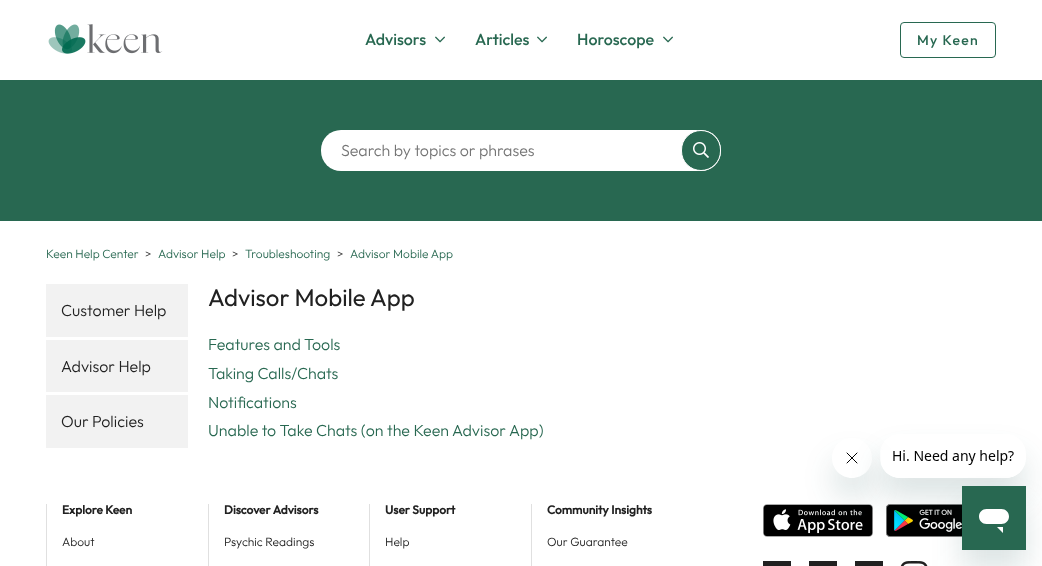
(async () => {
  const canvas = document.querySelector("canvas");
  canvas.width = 1042;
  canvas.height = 566;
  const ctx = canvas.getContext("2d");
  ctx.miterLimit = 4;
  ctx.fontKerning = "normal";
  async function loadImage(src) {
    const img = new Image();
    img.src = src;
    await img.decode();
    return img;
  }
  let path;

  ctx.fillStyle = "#ffffff";
  ctx.fillRect(0, 0, 1042, 566);
  ctx.drawImage(await loadImage("img/1.png"), 48, 24, 115, 30);
  ctx.drawImage(await loadImage("img/2.png"), 435, 36, 10, 7);
  ctx.drawImage(await loadImage("img/2.png"), 537, 36, 10, 7);
  ctx.drawImage(await loadImage("img/2.png"), 663, 36, 10, 7);
  ctx.beginPath();
  ctx.roundRect(900.5, 22.5, 95, 35, 3.5);
  ctx.strokeStyle = "#286851";
  ctx.stroke();
  ctx.fillStyle = "#286851";
  ctx.fillRect(0, 80, 1042, 141);
  ctx.fillStyle = "#ffffff";
  ctx.beginPath();
  ctx.roundRect(321, 130, 400, 41, 20);
  ctx.fill();
  ctx.fillStyle = "#286851";
  ctx.beginPath();
  ctx.roundRect(681.5, 130.5, 39, 40, 19.5);
  ctx.fill();
  ctx.strokeStyle = "#ffffff";
  ctx.stroke();
  ctx.drawImage(await loadImage("img/3.png"), 693, 142, 16, 16);
  for (const [x, y, w, h, color] of [
    [46, 284, 142, 53, "#f2f2f2"],
    [46, 340, 142, 52, "#f2f2f2"],
    [46, 395, 142, 53, "#f2f2f2"],
    [46, 504, 1, 62, "#e0e0e0"],
    [208, 504, 1, 62, "#e0e0e0"],
    [369, 504, 1, 62, "#e0e0e0"],
    [531, 504, 1, 62, "#e0e0e0"],
  ]) {
    ctx.fillStyle = color;
    ctx.fillRect(x, y, w, h);
  }
  ctx.drawImage(await loadImage("img/4.png"), 763, 504, 110, 33);
  ctx.drawImage(await loadImage("img/5.png"), 886, 504, 76, 33);
  for (const [x, y, w, h, color] of [
    [763, 561, 28, 5, "#212121"],
    [809, 561, 28, 5, "#212121"],
    [855, 561, 28, 5, "#212121"],
  ]) {
    ctx.fillStyle = color;
    ctx.fillRect(x, y, w, h);
  }
  ctx.drawImage(await loadImage("img/6.png"), 900, 561, 28, 5);
  ctx.save();
  path = new Path2D("M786 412H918V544H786ZM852 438C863 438 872 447 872 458C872 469 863 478 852 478C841 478 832 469 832 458C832 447 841 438 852 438Z");
  ctx.clip(path, "evenodd");
  ctx.fillStyle = "rgba(23, 73, 77, 0.15)";
  ctx.filter = "blur(15px)";
  ctx.beginPath();
  ctx.roundRect(832, 458, 40, 40, 20);
  ctx.fill();
  ctx.filter = "none";
  ctx.restore();
  ctx.drawImage(await loadImage("img/8.png"), 846, 452, 12, 12);
  ctx.save();
  path = new Path2D("M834 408H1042V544H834ZM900 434H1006C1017 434 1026 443 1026 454V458C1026 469 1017 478 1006 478H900C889 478 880 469 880 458V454C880 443 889 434 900 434Z");
  ctx.clip(path, "evenodd");
  ctx.fillStyle = "rgba(23, 73, 77, 0.15)";
  ctx.filter = "blur(15px)";
  ctx.beginPath();
  ctx.roundRect(880, 454, 146, 44, 20);
  ctx.fill();
  ctx.filter = "none";
  ctx.restore();
  ctx.drawImage(await loadImage("img/7.png"), 881, 450, 139, 28);
  ctx.fillStyle = "rgba(23, 73, 77, 0.15)";
  ctx.filter = "blur(15px)";
  ctx.beginPath();
  ctx.rect(962, 506, 64, 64);
  ctx.fill();
  ctx.filter = "none";
  ctx.drawImage(await loadImage("img/9.png"), 962, 486, 64, 64);
  ctx.font = "500 16px Outfit";
  ctx.fillStyle = "#286851";
  for (const [text, x, y] of [
    ["Advisors", 365, 45],
    ["Articles", 475, 45],
    ["Horoscope", 577, 45],
  ]) {
    ctx.fillText(text, x, y);
  }
  ctx.letterSpacing = "1.25px";
  ctx.font = "500 14px Outfit";
  ctx.fillText("My Keen", 917, 45);
  ctx.letterSpacing = "0px";
  ctx.font = "300 16px Outfit";
  ctx.fillStyle = "#757575";
  ctx.fillText("Search by topics or phrases", 341, 156);
  ctx.font = "300 12px Outfit";
  ctx.fillStyle = "#286851";
  ctx.fillText("Keen Help Center", 46, 258);
  ctx.fillStyle = "#212121";
  ctx.fillText(">", 145, 258);
  ctx.fillStyle = "#286851";
  ctx.fillText("Advisor Help", 158, 258);
  ctx.fillStyle = "#212121";
  ctx.fillText(">", 232, 258);
  ctx.fillStyle = "#286851";
  ctx.fillText("Troubleshooting", 245, 258);
  ctx.fillStyle = "#212121";
  ctx.fillText(">", 337, 258);
  ctx.fillStyle = "#286851";
  ctx.fillText("Advisor Mobile App", 350, 258);
  ctx.font = "300 16px Outfit";
  ctx.fillStyle = "#212121";
  for (const [text, x, y] of [
    ["Customer Help", 61, 316],
    ["Advisor Help", 61, 372],
    ["Our Policies", 61, 427],
  ]) {
    ctx.fillText(text, x, y);
  }
  ctx.font = "24px Outfit";
  ctx.fillText("Advisor Mobile App", 208, 306);
  ctx.font = "300 16px Outfit";
  ctx.fillStyle = "#286851";
  for (const [text, x, y] of [
    ["Features and Tools", 208, 350],
    ["Taking Calls/Chats", 208, 379],
    ["Notifications", 208, 408],
    ["Unable to Take Chats (on the Keen Advisor App)", 208, 436],
  ]) {
    ctx.fillText(text, x, y);
  }
  ctx.font = "bold 12px Outfit";
  ctx.fillStyle = "#212121";
  ctx.fillText("Explore Keen", 62, 514);
  ctx.font = "300 12px Outfit";
  ctx.fillText("About", 62, 546);
  ctx.font = "bold 12px Outfit";
  ctx.fillText("Discover Advisors", 224, 514);
  ctx.font = "300 12px Outfit";
  ctx.fillText("Psychic Readings", 224, 546);
  ctx.font = "bold 12px Outfit";
  ctx.fillText("User Support", 385, 514);
  ctx.font = "300 12px Outfit";
  ctx.fillText("Help", 385, 546);
  ctx.font = "bold 12px Outfit";
  ctx.fillText("Community Insights", 547, 514);
  ctx.font = "300 12px Outfit";
  ctx.fillText("Our Guarantee", 547, 546);
})();
